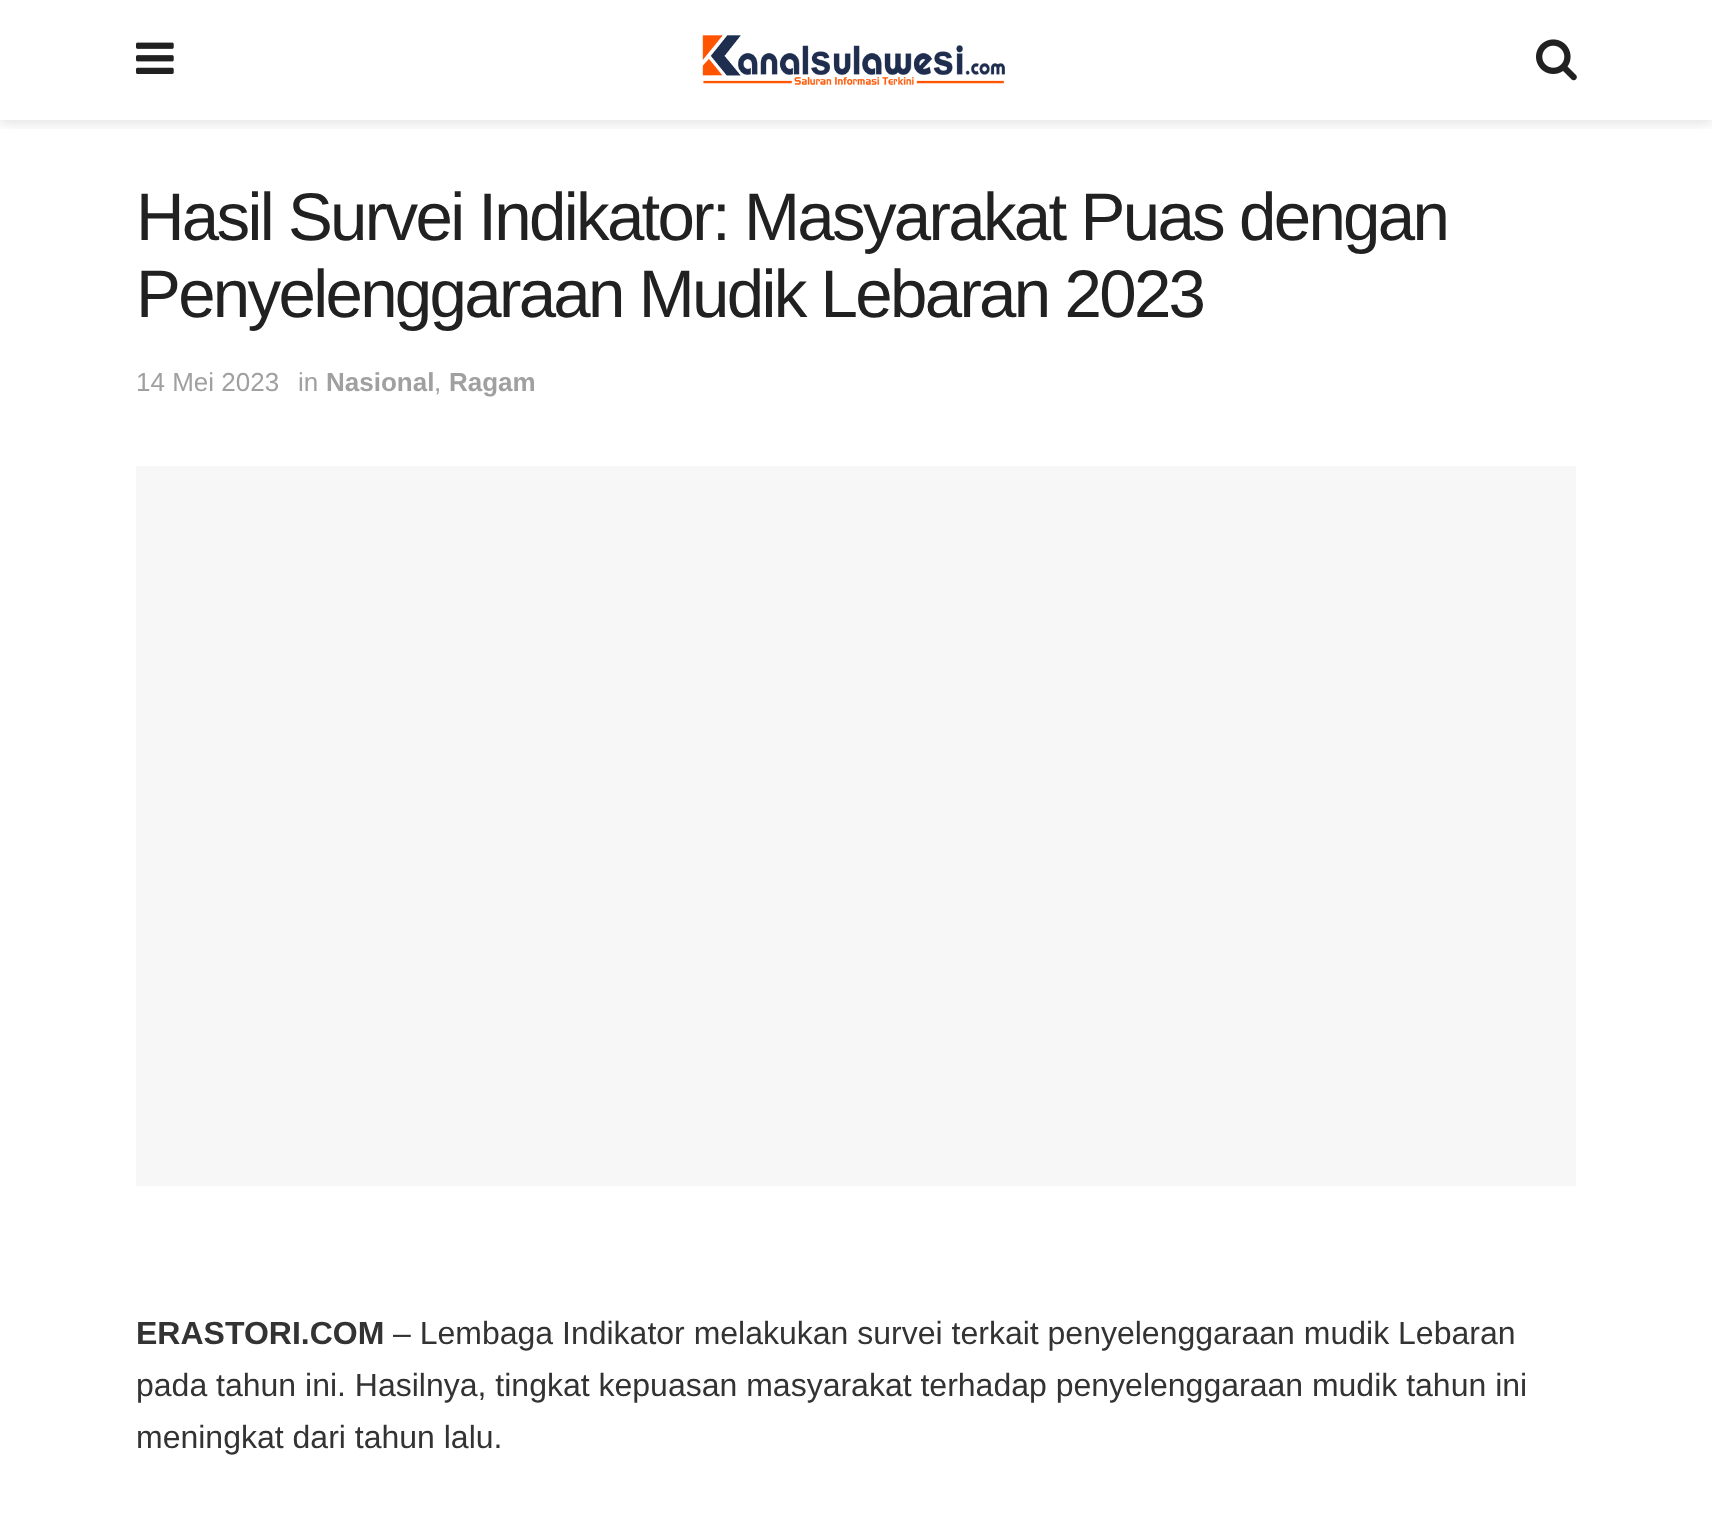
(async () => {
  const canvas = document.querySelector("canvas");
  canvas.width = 1712;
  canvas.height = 1530;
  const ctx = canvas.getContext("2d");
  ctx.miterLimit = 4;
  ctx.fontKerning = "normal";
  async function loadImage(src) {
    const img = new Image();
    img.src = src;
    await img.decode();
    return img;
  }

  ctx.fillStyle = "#ffffff";
  ctx.fillRect(0, 0, 1712, 1530);
  ctx.save();
  ctx.beginPath();
  ctx.rect(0, 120, 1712, 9);
  ctx.clip();
  ctx.fillStyle = "rgba(0, 0, 0, 0.1)";
  ctx.filter = "blur(6px)";
  ctx.beginPath();
  ctx.rect(0, 4, 1712, 120);
  ctx.fill();
  ctx.filter = "none";
  ctx.restore();
  ctx.drawImage(await loadImage("img/1.png"), 136, 42, 38, 32);
  ctx.drawImage(await loadImage("img/2.png"), 702, 35, 303, 50);
  ctx.drawImage(await loadImage("img/3.png"), 1536, 39, 41, 42);
  ctx.fillStyle = "#f7f7f7";
  ctx.fillRect(136, 466, 1440, 720);
  ctx.letterSpacing = "-2.7px";
  ctx.font = "67.25px Liberation Sans";
  ctx.fillStyle = "#212121";
  ctx.fillText("Hasil Survei Indikator: Masyarakat Puas dengan", 136, 240);
  ctx.fillText("Penyelenggaraan Mudik Lebaran 2023", 136, 317);
  ctx.letterSpacing = "0px";
  ctx.font = "26px Liberation Sans";
  ctx.fillStyle = "#a0a0a0";
  ctx.fillText("14 Mei 2023", 136, 391);
  ctx.fillText("in", 298, 391);
  ctx.font = "bold 26px Liberation Sans";
  ctx.fillText("Nasional", 326, 391);
  ctx.font = "26px Liberation Sans";
  ctx.fillText(",", 434, 391);
  ctx.font = "bold 26px Liberation Sans";
  ctx.fillText("Ragam", 449, 391);
  ctx.font = "bold 32px Liberation Sans";
  ctx.fillStyle = "#333333";
  ctx.fillText("ERASTORI.COM", 136, 1344);
  ctx.font = "32px Liberation Sans";
  for (const [text, x, y] of [
    ["– Lembaga Indikator melakukan survei terkait penyelenggaraan mudik Lebaran", 393, 1344],
    ["pada tahun ini. Hasilnya, tingkat kepuasan masyarakat terhadap penyelenggaraan mudik tahun ini", 136, 1396],
    ["meningkat dari tahun lalu.", 136, 1448],
  ]) {
    ctx.fillText(text, x, y);
  }
})();
